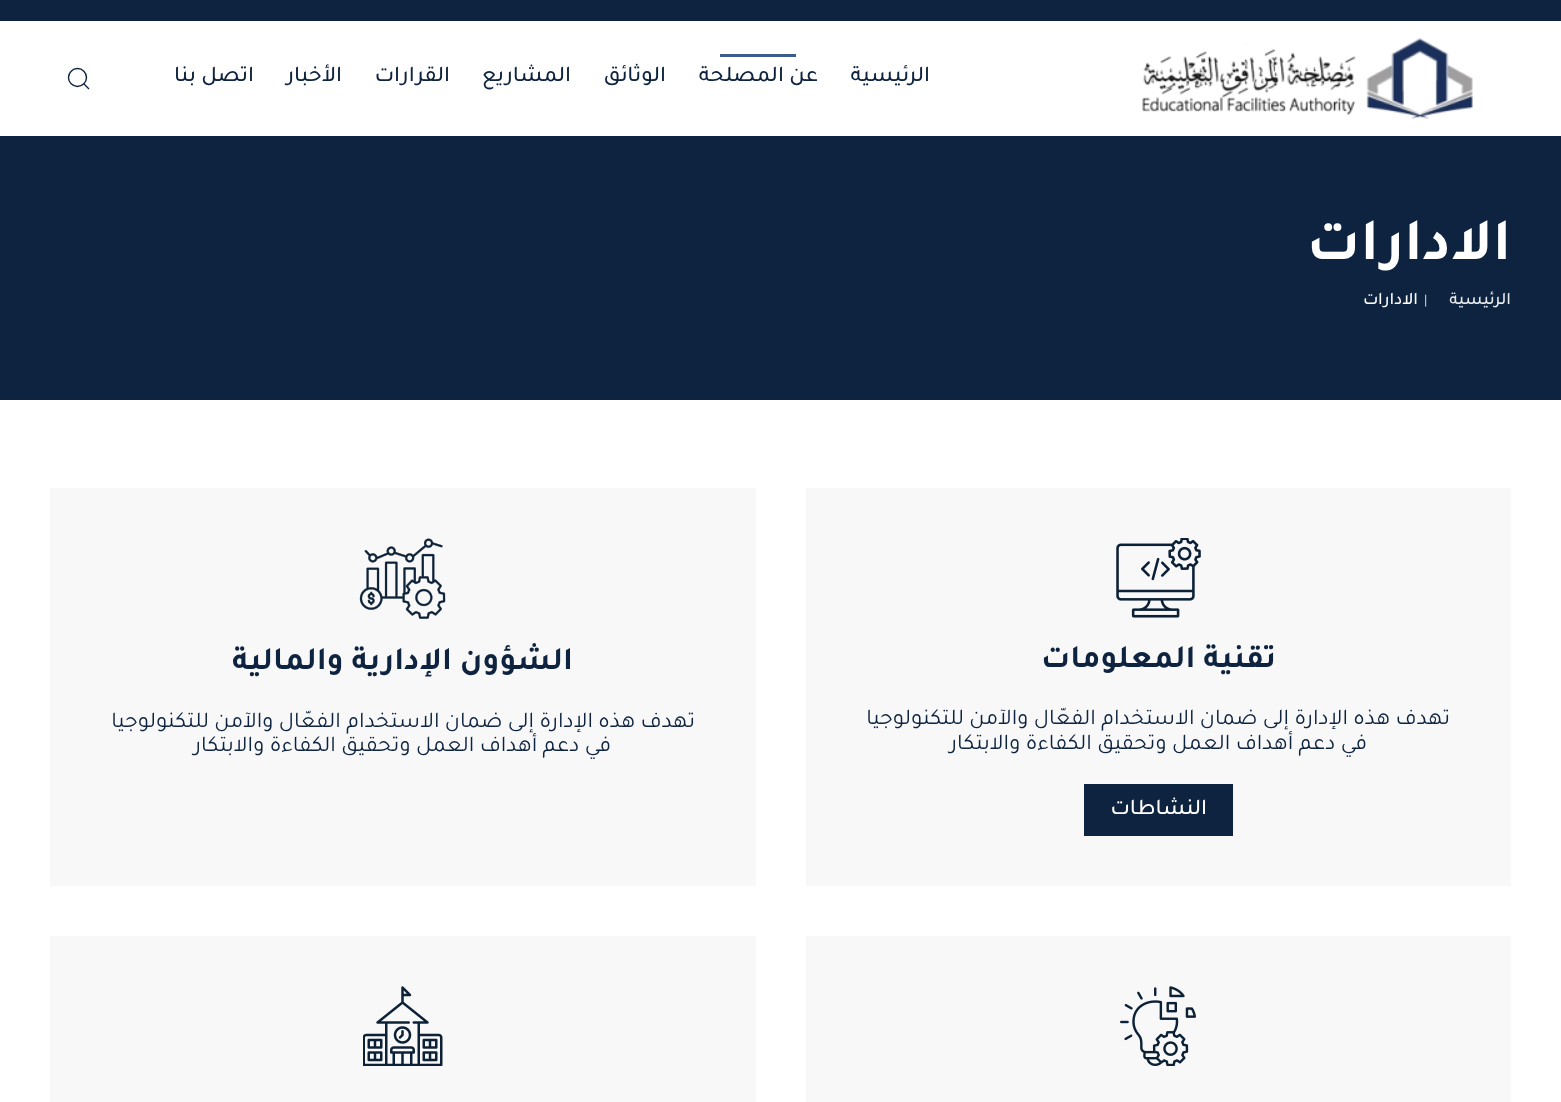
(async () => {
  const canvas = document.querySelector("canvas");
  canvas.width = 1561;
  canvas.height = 1102;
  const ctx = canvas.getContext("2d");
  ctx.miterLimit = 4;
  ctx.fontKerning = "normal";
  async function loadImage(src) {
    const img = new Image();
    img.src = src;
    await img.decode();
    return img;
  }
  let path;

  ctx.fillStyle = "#ffffff";
  ctx.fillRect(0, 0, 1561, 1102);
  ctx.fillStyle = "#0e233f";
  ctx.fillRect(0, 0, 1561, 21);
  ctx.drawImage(await loadImage("img/1.png"), 1142, 38, 331, 81);
  ctx.fillStyle = "#3c5d89";
  ctx.fillRect(720, 54, 76, 3);
  ctx.beginPath();
  ctx.arc(77.5, 77.5, 9, 0, Math.PI * 2);
  ctx.strokeStyle = "#0e233f";
  ctx.lineWidth = 1.4;
  ctx.stroke();
  path = new Path2D("M84 84L89 89Z");
  ctx.stroke(path);
  ctx.fillStyle = "#0e233f";
  ctx.fillRect(0, 136, 1561, 264);
  ctx.fillStyle = "#f8f8f8";
  ctx.fillRect(806, 488, 705, 398);
  ctx.drawImage(await loadImage("img/2.png"), 1116, 538, 85, 80);
  ctx.fillStyle = "#0e233f";
  ctx.fillRect(1084, 784, 149, 52);
  ctx.fillStyle = "#f8f8f8";
  ctx.fillRect(50, 488, 706, 398);
  ctx.drawImage(await loadImage("img/3.png"), 359, 538, 87, 81);
  ctx.fillRect(806, 936, 705, 166);
  ctx.drawImage(await loadImage("img/4.png"), 1120, 986, 76, 80);
  ctx.fillRect(50, 936, 706, 166);
  ctx.drawImage(await loadImage("img/5.png"), 363, 986, 80, 80);
  ctx.direction = "rtl";
  ctx.font = "500 22.5px Tajawal";
  ctx.fillStyle = "#0e233f";
  for (const [text, x, y] of [
    ["الرئيسية", 930, 81],
    ["عن المصلحة", 818, 81],
    ["الوثائق", 666, 81],
    ["المشاريع", 571, 81],
    ["القرارات", 450, 81],
    ["الأخبار", 342, 81],
    ["اتصل بنا", 254, 81],
  ]) {
    ctx.fillText(text, x, y);
  }
  ctx.font = "bold 60px Tajawal";
  ctx.fillStyle = "#ffffff";
  ctx.fillText("الادارات", 1511, 259);
  ctx.font = "500 17.5px Tajawal";
  ctx.fillStyle = "#e7e9ec";
  ctx.fillText("الرئيسية", 1511, 304);
  ctx.direction = "ltr";
  ctx.font = "14px Tajawal";
  ctx.fillText("|", 1424, 304);
  ctx.direction = "rtl";
  ctx.font = "500 17.5px Tajawal";
  ctx.fillStyle = "#ffffff";
  ctx.fillText("الادارات", 1418, 304);
  ctx.font = "bold 32.5px Tajawal";
  ctx.fillStyle = "#0e233f";
  ctx.fillText("تقنية المعلومات", 1276, 667);
  ctx.font = "22.5px Tajawal";
  ctx.fillText("تهدف هذه الإدارة إلى ضمان الاستخدام الفعّال والآمن للتكنولوجيا", 1450, 724);
  ctx.fillText("في دعم أهداف العمل وتحقيق الكفاءة والابتكار", 1367, 749);
  ctx.font = "500 22.5px Tajawal";
  ctx.fillStyle = "#ffffff";
  ctx.fillText("النشاطات", 1207, 814);
  ctx.font = "bold 32.5px Tajawal";
  ctx.fillStyle = "#0e233f";
  ctx.fillText("الشؤون الإدارية والمالية", 573, 669);
  ctx.font = "22.5px Tajawal";
  ctx.fillText("تهدف هذه الإدارة إلى ضمان الاستخدام الفعّال والآمن للتكنولوجيا", 695, 727);
  ctx.fillText("في دعم أهداف العمل وتحقيق الكفاءة والابتكار", 611, 751);
})();
